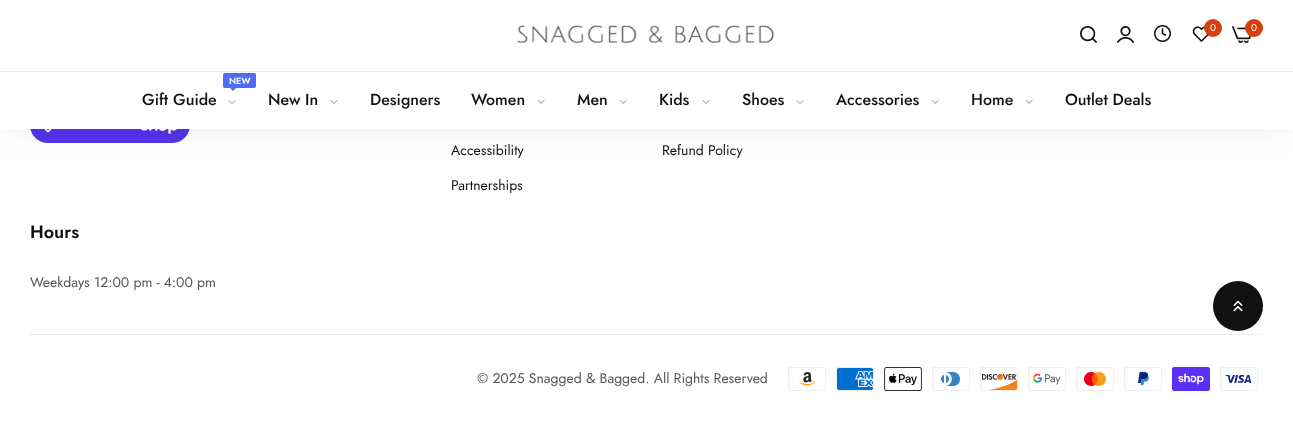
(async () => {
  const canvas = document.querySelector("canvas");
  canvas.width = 1293;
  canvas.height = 421;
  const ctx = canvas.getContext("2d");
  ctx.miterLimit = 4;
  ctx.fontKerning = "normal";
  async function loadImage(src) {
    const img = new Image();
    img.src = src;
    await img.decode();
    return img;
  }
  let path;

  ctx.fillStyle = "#ffffff";
  ctx.fillRect(0, 0, 1293, 421);
  ctx.fillStyle = "#5433eb";
  ctx.beginPath();
  ctx.roundRect(30, 107, 160, 36, 18);
  ctx.fill();
  ctx.drawImage(await loadImage("img/7.png"), 44, 129, 8, 4);
  ctx.drawImage(await loadImage("img/8.png"), 141, 129, 36, 5);
  ctx.fillStyle = "rgba(0, 0, 0, 0.05)";
  ctx.filter = "blur(15px)";
  ctx.beginPath();
  ctx.rect(0, 5, 1293, 129);
  ctx.fill();
  ctx.filter = "none";
  ctx.fillStyle = "#ffffff";
  ctx.fillRect(0, 0, 1293, 129);
  ctx.drawImage(await loadImage("img/1.png"), 517, 25, 257, 18);
  ctx.drawImage(await loadImage("img/2.png"), 1080, 26, 17, 17);
  ctx.drawImage(await loadImage("img/3.png"), 1117, 26, 17, 17);
  ctx.drawImage(await loadImage("img/4.png"), 1154, 25, 17, 17);
  ctx.drawImage(await loadImage("img/5.png"), 1192, 26, 17, 16);
  ctx.fillStyle = "#d73f0f";
  ctx.beginPath();
  ctx.arc(1213, 28, 9, 0, Math.PI * 2);
  ctx.fill();
  ctx.drawImage(await loadImage("img/6.png"), 1232, 26, 19, 17);
  ctx.beginPath();
  ctx.arc(1254, 28, 9, 0, Math.PI * 2);
  ctx.fill();
  ctx.fillStyle = "#ebebeb";
  ctx.fillRect(0, 71, 1293, 1);
  ctx.fillStyle = "#516cf4";
  ctx.beginPath();
  ctx.roundRect(223, 73, 33, 15, 2);
  ctx.fill();
  path = new Path2D("M230 88H236L233 91Z");
  ctx.fill(path);
  path = new Path2D("M229 100.5L232 103.5L235 100.5");
  ctx.strokeStyle = "#888888";
  ctx.lineCap = "round";
  ctx.lineJoin = "round";
  ctx.stroke(path);
  path = new Path2D("M331 100.5L334 103.5L337 100.5");
  ctx.stroke(path);
  path = new Path2D("M538 100.5L541 103.5L544 100.5");
  ctx.stroke(path);
  path = new Path2D("M620 100.5L623 103.5L626 100.5");
  ctx.stroke(path);
  path = new Path2D("M703 100.5L706 103.5L709 100.5");
  ctx.stroke(path);
  path = new Path2D("M797 100.5L800 103.5L803 100.5");
  ctx.stroke(path);
  path = new Path2D("M932 100.5L935 103.5L938 100.5");
  ctx.stroke(path);
  path = new Path2D("M1026 100.5L1029 103.5L1032 100.5");
  ctx.stroke(path);
  ctx.fillStyle = "#ebebeb";
  ctx.fillRect(30, 334, 1233, 1);
  ctx.drawImage(await loadImage("img/9.png"), 788, 367, 38, 24);
  ctx.drawImage(await loadImage("img/10.png"), 836, 367, 38, 24);
  ctx.drawImage(await loadImage("img/11.png"), 884, 367, 38, 24);
  ctx.drawImage(await loadImage("img/12.png"), 932, 367, 38, 24);
  ctx.drawImage(await loadImage("img/13.png"), 980, 367, 38, 24);
  ctx.drawImage(await loadImage("img/14.png"), 1028, 367, 38, 24);
  ctx.drawImage(await loadImage("img/15.png"), 1076, 367, 38, 24);
  ctx.drawImage(await loadImage("img/16.png"), 1124, 367, 38, 24);
  ctx.drawImage(await loadImage("img/17.png"), 1172, 367, 38, 24);
  ctx.drawImage(await loadImage("img/18.png"), 1220, 367, 38, 24);
  ctx.fillStyle = "#111111";
  ctx.beginPath();
  ctx.arc(1238, 306, 25, 0, Math.PI * 2);
  ctx.fill();
  ctx.drawImage(await loadImage("img/19.png"), 1233, 300, 10, 12);
  ctx.font = "10px Jost";
  ctx.fillStyle = "#ffffff";
  ctx.fillText("0", 1210, 31);
  ctx.fillText("0", 1251, 31);
  ctx.font = "600 9px Jost";
  ctx.fillText("NEW", 229, 84);
  ctx.font = "500 16px Jost";
  ctx.fillStyle = "#111111";
  for (const [text, x, y] of [
    ["Gift Guide", 142, 105],
    ["New In", 268, 105],
    ["Designers", 370, 105],
    ["Women", 471, 105],
    ["Men", 577, 105],
    ["Kids", 659, 105],
    ["Shoes", 742, 105],
    ["Accessories", 836, 105],
    ["Home", 971, 105],
    ["Outlet Deals", 1065, 105],
  ]) {
    ctx.fillText(text, x, y);
  }
  ctx.font = "14px Jost";
  for (const [text, x, y] of [
    ["Accessibility", 451, 155],
    ["Partnerships", 451, 190],
    ["Refund Policy", 662, 155],
  ]) {
    ctx.fillText(text, x, y);
  }
  ctx.font = "600 18px Jost";
  ctx.fillText("Hours", 30, 238);
  ctx.font = "14px Jost";
  ctx.fillStyle = "#555555";
  ctx.fillText("Weekdays 12:00 pm - 4:00 pm", 30, 287);
  ctx.fillText("© 2025 Snagged & Bagged. All Rights Reserved", 477, 383);
})();
